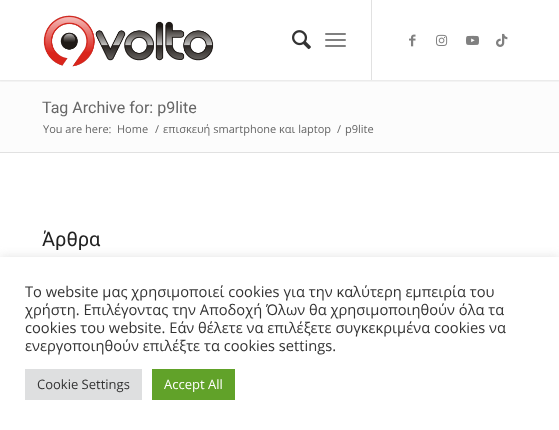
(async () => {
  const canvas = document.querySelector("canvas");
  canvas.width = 559;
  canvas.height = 430;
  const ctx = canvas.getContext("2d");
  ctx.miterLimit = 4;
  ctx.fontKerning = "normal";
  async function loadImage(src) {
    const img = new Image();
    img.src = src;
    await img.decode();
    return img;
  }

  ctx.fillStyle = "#ffffff";
  ctx.fillRect(0, 0, 559, 430);
  ctx.fillStyle = "#fcfcfc";
  ctx.fillRect(0, 80, 559, 72);
  ctx.save();
  ctx.beginPath();
  ctx.rect(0, 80, 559, 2);
  ctx.clip();
  ctx.fillStyle = "rgba(0, 0, 0, 0.1)";
  ctx.filter = "blur(1px)";
  ctx.beginPath();
  ctx.rect(-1, -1, 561, 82);
  ctx.fill();
  ctx.filter = "none";
  ctx.restore();
  ctx.drawImage(await loadImage("img/1.png"), 43, 15, 171, 52);
  ctx.fillStyle = "#e1e1e1";
  ctx.fillRect(371, 0, 1, 80);
  ctx.drawImage(await loadImage("img/2.png"), 292, 30, 19, 20);
  ctx.fillStyle = "#808080";
  ctx.beginPath();
  ctx.roundRect(325, 39, 21, 2, 1);
  ctx.fill();
  ctx.beginPath();
  ctx.roundRect(325, 33, 21, 2, 1);
  ctx.fill();
  ctx.beginPath();
  ctx.roundRect(325, 45, 21, 2, 1);
  ctx.fill();
  ctx.drawImage(await loadImage("img/3.png"), 409, 34, 7, 13);
  ctx.drawImage(await loadImage("img/4.png"), 436, 34, 12, 12);
  ctx.drawImage(await loadImage("img/5.png"), 466, 35, 13, 10);
  ctx.drawImage(await loadImage("img/6.png"), 496, 33, 12, 14);
  ctx.fillStyle = "#e1e1e1";
  ctx.fillRect(0, 152, 559, 1);
  ctx.fillStyle = "rgba(172, 171, 171, 0.3)";
  ctx.filter = "blur(5px)";
  ctx.beginPath();
  ctx.rect(0, 256, 559, 173);
  ctx.fill();
  ctx.filter = "none";
  for (const [x, y, w, h, color] of [
    [0, 257, 559, 173, "#ffffff"],
    [25, 369, 117, 31, "#dedfe0"],
    [152, 369, 83, 31, "#61a229"],
  ]) {
    ctx.fillStyle = color;
    ctx.fillRect(x, y, w, h);
  }
  ctx.font = "16px Roboto";
  ctx.fillStyle = "#666666";
  ctx.fillText("Tag Archive for: p9lite", 42, 113);
  ctx.font = "11px Open Sans";
  for (const [text, x, y] of [
    ["You are here:", 43, 133],
    ["Home", 117, 133],
    ["/", 155, 133],
    ["επισκευή smartphone και laptop", 163, 133],
    ["/", 337, 133],
    ["p9lite", 345, 133],
  ]) {
    ctx.fillText(text, x, y);
  }
  ctx.font = "20px Roboto";
  ctx.fillStyle = "#222222";
  ctx.fillText("Άρθρα", 42, 246);
  ctx.font = "14.7px Open Sans";
  ctx.fillStyle = "#333333";
  for (const [text, x, y] of [
    ["To website μας χρησιμοποιεί cookies για την καλύτερη εμπειρία του", 25, 297],
    ["χρήστη. Επιλέγοντας την Αποδοχή Όλων θα χρησιμοποιηθούν όλα τα", 25, 315],
    ["cookies του website. Εάν θέλετε να επιλέξετε συγκεκριμένα cookies να", 25, 333],
    ["ενεργοποιηθούν επιλέξτε τα cookies settings.", 25, 351],
  ]) {
    ctx.fillText(text, x, y);
  }
  ctx.font = "13px Open Sans";
  ctx.fillText("Cookie Settings", 37, 389);
  ctx.fillStyle = "#ffffff";
  ctx.fillText("Accept All", 164, 389);
})();
